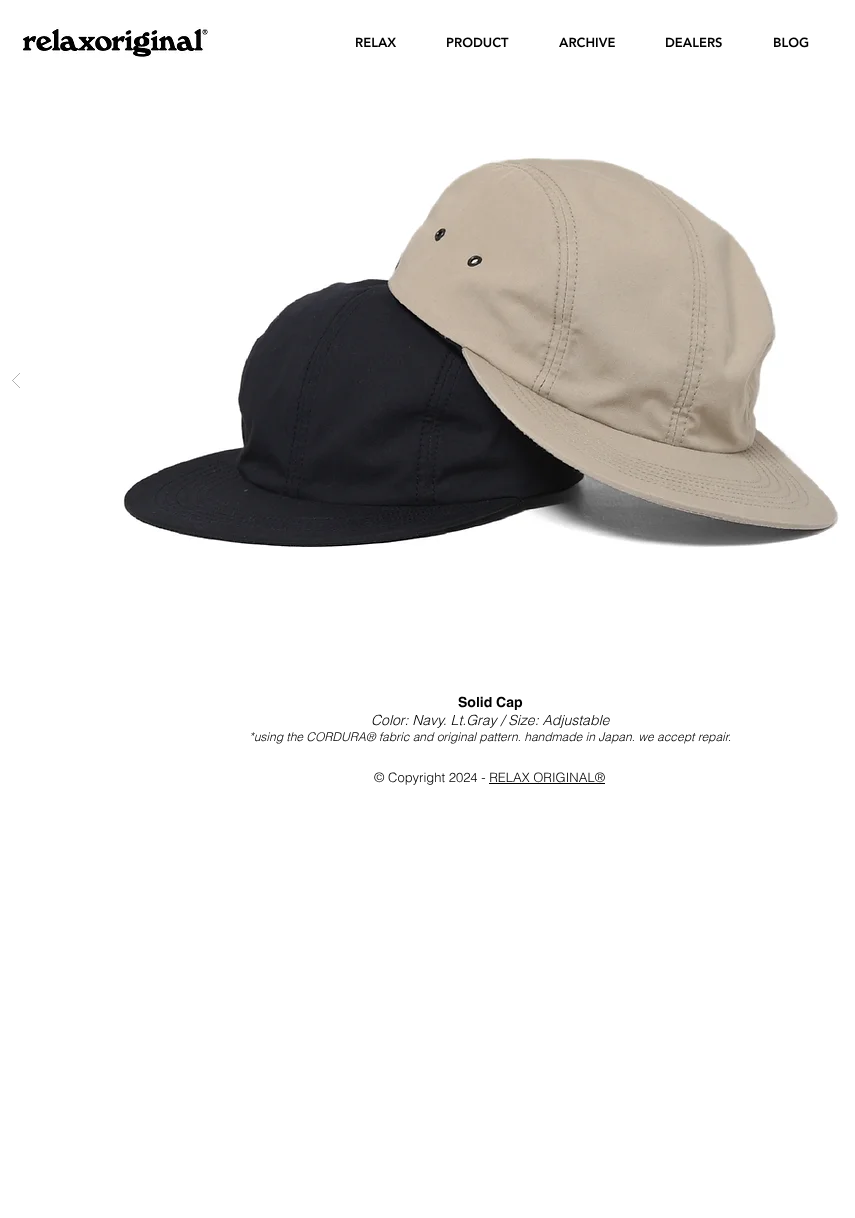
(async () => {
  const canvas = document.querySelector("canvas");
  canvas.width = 855;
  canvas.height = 1218;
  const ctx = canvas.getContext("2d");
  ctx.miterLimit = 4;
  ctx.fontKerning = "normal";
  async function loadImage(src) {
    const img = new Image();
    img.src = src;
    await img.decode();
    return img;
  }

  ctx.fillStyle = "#ffffff";
  ctx.fillRect(0, 0, 855, 1218);
  ctx.drawImage(await loadImage("img/1.png"), 20, 27, 188, 31);
  ctx.drawImage(await loadImage("img/2.png"), 12, 373, 8, 15);
  ctx.drawImage(await loadImage("img/3.png"), 121, 156, 719, 392);
  ctx.fillStyle = "#000000";
  ctx.fillRect(489, 783, 116, 1);
  ctx.font = "900 13px 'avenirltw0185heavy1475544'";
  for (const [text, x, y] of [
    ["RELAX", 355, 47],
    ["PRODUCT", 446, 47],
    ["ARCHIVE", 559, 47],
    ["DEALERS", 665, 47],
    ["BLOG", 773, 47],
  ]) {
    ctx.fillText(text, x, y);
  }
  ctx.font = "bold 14px helvetica";
  ctx.fillText("Solid Cap", 458, 707);
  ctx.font = "italic 300 14px helvetica";
  ctx.fillText("Color: Navy. Lt.Gray / Size: Adjustable", 371, 725);
  ctx.font = "italic 300 12px helvetica";
  ctx.fillText("*using the CORDURA® fabric and original pattern. handmade in Japan. we accept repair.", 249, 741);
  ctx.font = "300 13px helvetica";
  ctx.fillText("© Copyright 2024 - RELAX ORIGINAL®", 374, 782);
})();
